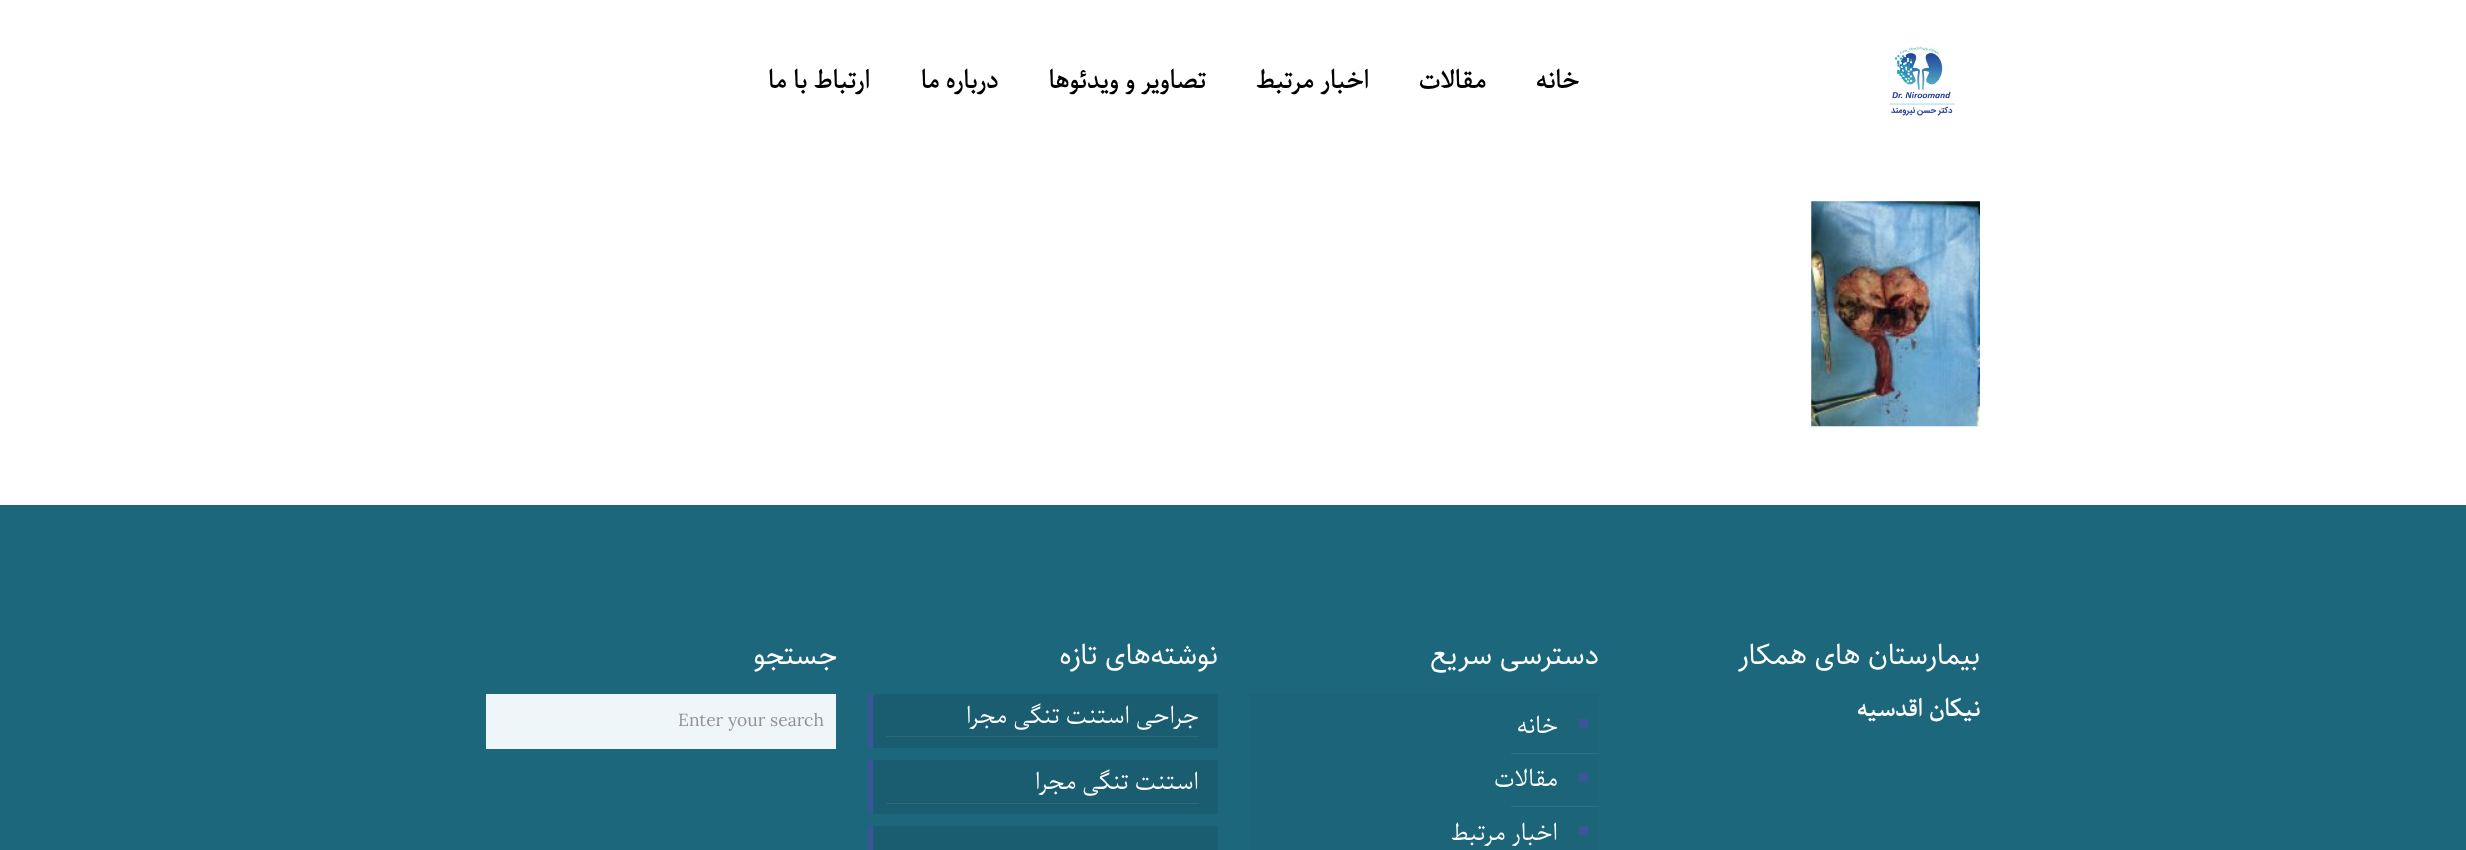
(async () => {
  const canvas = document.querySelector("canvas");
  canvas.width = 2466;
  canvas.height = 850;
  const ctx = canvas.getContext("2d");
  ctx.miterLimit = 4;
  ctx.fontKerning = "normal";
  async function loadImage(src) {
    const img = new Image();
    img.src = src;
    await img.decode();
    return img;
  }

  ctx.fillStyle = "#ffffff";
  ctx.fillRect(0, 0, 2466, 850);
  ctx.drawImage(await loadImage("img/1.png"), 1889, 46, 66, 70);
  ctx.drawImage(await loadImage("img/2.png"), 1811, 201, 169, 226);
  for (const [x, y, w, h, color] of [
    [0, 505, 2466, 345, "#1d677c"],
    [1249, 694, 350, 156, "#1c6478"],
    [1579, 719, 9, 9, "#3b559a"],
    [1511, 753, 88, 1, "#2e7083"],
    [1579, 773, 9, 8, "#3b559a"],
    [1511, 806, 88, 1, "#2e7083"],
    [1579, 826, 9, 9, "#3b559a"],
    [873, 694, 345, 54, "#1a5d70"],
    [886, 736, 313, 1, "#2c6a7b"],
    [868, 694, 5, 54, "#3b559a"],
    [873, 760, 345, 54, "#1a5d70"],
    [886, 803, 313, 1, "#2c6a7b"],
    [868, 760, 5, 54, "#3b559a"],
    [873, 826, 345, 24, "#1a5d70"],
    [868, 826, 5, 24, "#3b559a"],
    [486, 694, 350, 55, "#eff6fa"],
  ]) {
    ctx.fillStyle = color;
    ctx.fillRect(x, y, w, h);
  }
  ctx.direction = "rtl";
  ctx.font = "bold 23.75px Parastoo";
  ctx.fillStyle = "#000000";
  for (const [text, x, y] of [
    ["خانه", 1579, 88],
    ["مقالات", 1486, 88],
    ["اخبار مرتبط", 1369, 88],
    ["تصاویر و ویدئوها", 1206, 88],
    ["درباره ما", 998, 88],
    ["ارتباط با ما", 870, 88],
  ]) {
    ctx.fillText(text, x, y);
  }
  ctx.font = "28.75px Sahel";
  ctx.fillStyle = "#ffffff";
  ctx.fillText("بیمارستان های همکار", 1980, 664);
  ctx.font = "bold 22.5px Parastoo";
  ctx.fillText("نیکان اقدسیه", 1980, 716);
  ctx.font = "28.75px Sahel";
  ctx.fillText("دسترسی سریع", 1599, 664);
  ctx.font = "22.5px Parastoo";
  for (const [text, x, y] of [
    ["خانه", 1558, 733],
    ["مقالات", 1558, 786],
    ["اخبار مرتبط", 1558, 840],
  ]) {
    ctx.fillText(text, x, y);
  }
  ctx.font = "28.75px Sahel";
  ctx.fillText("نوشته‌های تازه", 1218, 664);
  ctx.font = "22.5px Parastoo";
  ctx.fillText("جراحی استنت تنگی مجرا", 1199, 723);
  ctx.fillText("استنت تنگی مجرا", 1199, 789);
  ctx.font = "28.75px Sahel";
  ctx.fillText("جستجو", 837, 664);
  ctx.direction = "ltr";
  ctx.font = "17.5px Parastoo";
  ctx.fillStyle = "#929292";
  ctx.fillText("Enter your search", 678, 726);
})();
